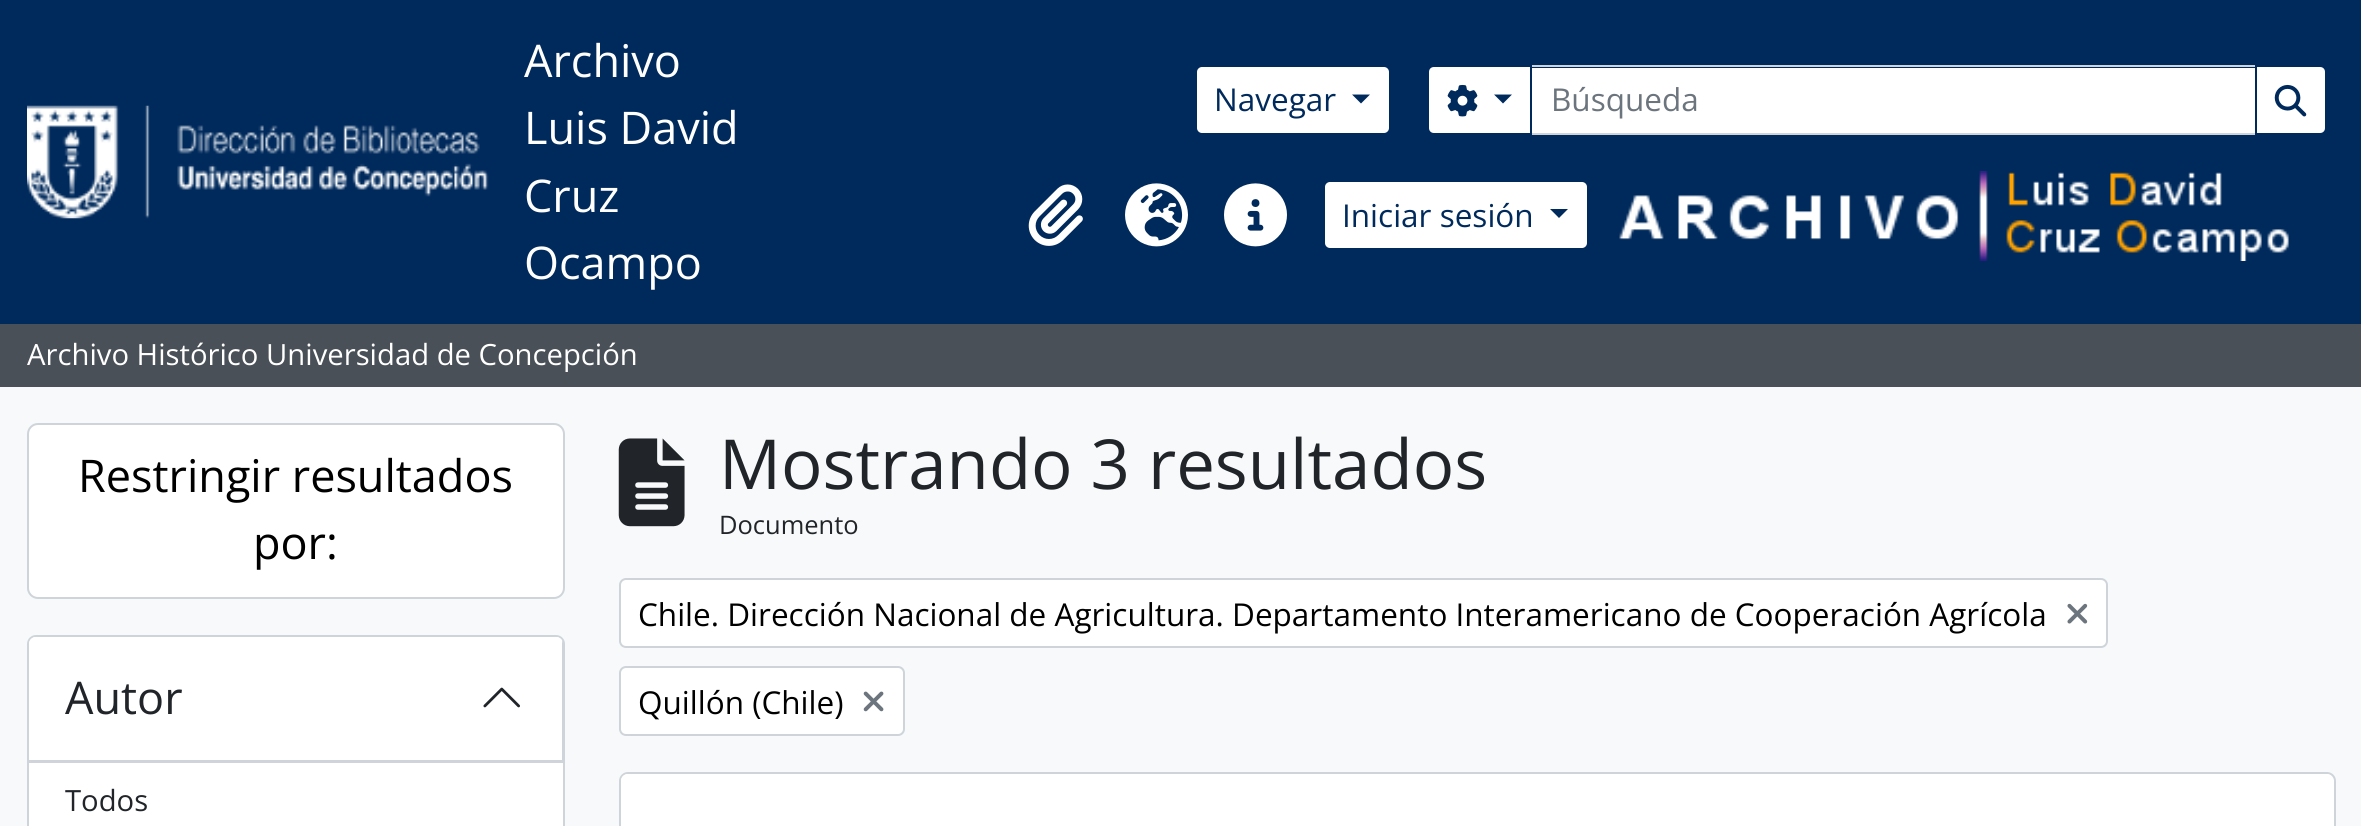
import math
import cairo

surface = cairo.ImageSurface(cairo.FORMAT_RGB24, 2361, 826)
ctx = cairo.Context(surface)
options = cairo.FontOptions()
options.set_hint_metrics(cairo.HINT_METRICS_OFF)
options.set_hint_style(cairo.HINT_STYLE_NONE)
ctx.set_font_options(options)
ctx.set_miter_limit(4)


def set_color(code):
    ctx.set_source_rgb(*(v / 255 for v in bytes.fromhex(code[-6:])))


def draw_text(x, y, s, family, size, color, bold=False, italic=False):
    ctx.select_font_face(family, cairo.FONT_SLANT_ITALIC if italic else cairo.FONT_SLANT_NORMAL, cairo.FONT_WEIGHT_BOLD if bold else cairo.FONT_WEIGHT_NORMAL)
    ctx.set_font_size(size)
    set_color(color)
    ctx.move_to(x, y)
    ctx.show_text(s)


def fill_rect(x, y, w, h, color):
    set_color(color)
    ctx.rectangle(x, y, w, h)
    ctx.fill()


def rounded_rect(x, y, w, h, r):
    ctx.new_sub_path()
    for i, (u, v) in enumerate([(x + w - r, y + h - r), (x + r, y + h - r), (x + r, y + r), (x + w - r, y + r)]):
        ctx.arc(u, v, r, i * math.pi / 2, (i + 1) * math.pi / 2)
    ctx.close_path()


def draw_image(path, x, y, w, h):
    ctx.save()
    ctx.set_source_surface(cairo.ImageSurface.create_from_png(path), x, y)
    ctx.rectangle(x, y, w, h)
    ctx.fill()
    ctx.restore()


set_color("#f8f9fa")
ctx.paint()
fill_rect(0, 0, 2361, 324, "#002a5c")
draw_image("assets/img1.png", 27, 105, 462, 114)
draw_text(524, 77, "Archivo", "Open Sans", 45, "#ffffff")
draw_text(524, 144, "Luis David", "Open Sans", 45, "#ffffff")
draw_text(524, 212, "Cruz", "Open Sans", 45, "#ffffff")
draw_text(524, 279, "Ocampo", "Open Sans", 45, "#ffffff")
rounded_rect(1196, 66, 194, 68, 6)
ctx.fill_preserve()
set_color("#002a5c")
ctx.stroke()
draw_text(1214, 111, "Navegar", "Open Sans", 31.5, "#002a5c")
ctx.new_path()
ctx.move_to(1352, 94.5)
ctx.line_to(1370, 94.5)
ctx.line_to(1361, 103.5)
ctx.close_path()
ctx.fill()
fill_rect(1532, 68, 723, 65, "#ffffff")
ctx.rectangle(1531, 66, 725, 68)
set_color("#ced4da")
ctx.stroke()
set_color("#ffffff")
ctx.new_path()
ctx.move_to(1434, 66)
ctx.line_to(1531, 66)
ctx.line_to(1531, 134)
ctx.line_to(1434, 134)
ctx.curve_to(1430.5, 134, 1428, 131.5, 1428, 128)
ctx.line_to(1428, 72)
ctx.curve_to(1428, 68.5, 1430.5, 66, 1434, 66)
ctx.close_path()
ctx.fill_preserve()
set_color("#002a5c")
ctx.stroke()
draw_image("assets/img2.png", 1447, 84, 31, 33)
ctx.new_path()
ctx.move_to(1494, 94.5)
ctx.line_to(1512, 94.5)
ctx.line_to(1503, 103.5)
ctx.close_path()
ctx.fill()
draw_text(1551, 111, "Búsqueda", "Open Sans", 31.5, "#6c757d")
set_color("#ffffff")
ctx.new_path()
ctx.move_to(2256, 66)
ctx.line_to(2320, 66)
ctx.curve_to(2323.5, 66, 2326, 68.5, 2326, 72)
ctx.line_to(2326, 128)
ctx.curve_to(2326, 131.5, 2323.5, 134, 2320, 134)
ctx.line_to(2256, 134)
ctx.close_path()
ctx.fill_preserve()
set_color("#002a5c")
ctx.stroke()
draw_image("assets/img3.png", 2274, 84, 33, 33)
draw_image("assets/img4.png", 1028, 184, 55, 62)
draw_image("assets/img5.png", 1125, 183, 63, 64)
draw_image("assets/img6.png", 1224, 183, 63, 64)
set_color("#ffffff")
rounded_rect(1324, 181, 264, 68, 6)
ctx.fill_preserve()
set_color("#002a5c")
ctx.stroke()
draw_text(1342, 227, "Iniciar sesión", "Open Sans", 31.5, "#002a5c")
ctx.new_path()
ctx.move_to(1550, 209)
ctx.line_to(1568, 209)
ctx.line_to(1559, 218)
ctx.close_path()
ctx.fill()
draw_image("assets/img7.png", 1619, 171, 670, 90)
fill_rect(0, 324, 2361, 63, "#495057")
draw_text(27, 365, "Archivo Histórico Universidad de Concepción", "Open Sans", 29.25, "#ffffff")
rounded_rect(28, 424, 536, 174, 10)
ctx.fill_preserve()
set_color("#ced4da")
ctx.stroke()
draw_text(78, 492, "Restringir resultados", "Open Sans", 45, "#000000")
draw_text(253, 559, "por:", "Open Sans", 45, "#000000")
set_color("#ffffff")
rounded_rect(28, 636, 536, 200, 8)
ctx.fill_preserve()
set_color("#ced4da")
ctx.stroke()
set_color("#ffffff")
ctx.new_path()
ctx.move_to(36, 637)
ctx.line_to(556, 637)
ctx.curve_to(560, 637, 563, 640, 563, 644)
ctx.line_to(563, 763)
ctx.line_to(29, 763)
ctx.line_to(29, 644)
ctx.curve_to(29, 640, 32, 637, 36, 637)
ctx.close_path()
ctx.fill()
set_color("#ced4da")
ctx.new_path()
ctx.move_to(29, 760)
ctx.line_to(29, 763)
ctx.line_to(563, 763)
ctx.line_to(563, 644)
ctx.curve_to(563, 643, 563, 641, 562, 640)
ctx.line_to(562, 760)
ctx.close_path()
ctx.fill()
draw_text(65, 714, "Autor", "Open Sans", 45, "#212529")
draw_image("assets/img8.png", 483, 687, 37, 21)
draw_text(65, 811, "Todos", "Open Sans", 29.25, "#212529")
draw_image("assets/img9.png", 618, 438, 67, 89)
draw_text(719, 489, "Mostrando 3 resultados", "Open Sans", 69, "#212529")
draw_text(719, 534, "Documento", "Open Sans", 25.5, "#212529")
set_color("#ffffff")
rounded_rect(620, 579, 1487, 68, 6)
ctx.fill_preserve()
set_color("#ced4da")
ctx.stroke()
draw_text(638, 626, "Chile. Dirección Nacional de Agricultura. Departamento Interamericano de Cooperación Agrícola", "Open Sans", 31.5, "#000000")
draw_image("assets/img10.png", 2067, 603, 21, 21)
set_color("#ffffff")
rounded_rect(620, 667, 284, 68, 6)
ctx.fill_preserve()
set_color("#ced4da")
ctx.stroke()
draw_text(638, 714, "Quillón (Chile)", "Open Sans", 31.5, "#000000")
draw_image("assets/img11.png", 863, 691, 21, 21)
set_color("#ffffff")
rounded_rect(620, 773, 1715, 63, 8)
ctx.fill_preserve()
set_color("#ced4da")
ctx.stroke()
set_color("#ffffff")
ctx.new_path()
ctx.move_to(628, 774)
ctx.line_to(2326, 774)
ctx.curve_to(2330, 774, 2333, 777, 2333, 781)
ctx.line_to(2333, 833)
ctx.line_to(621, 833)
ctx.line_to(621, 781)
ctx.curve_to(621, 777, 624, 774, 628, 774)
ctx.close_path()
ctx.fill()
surface.write_to_png("output.png")
